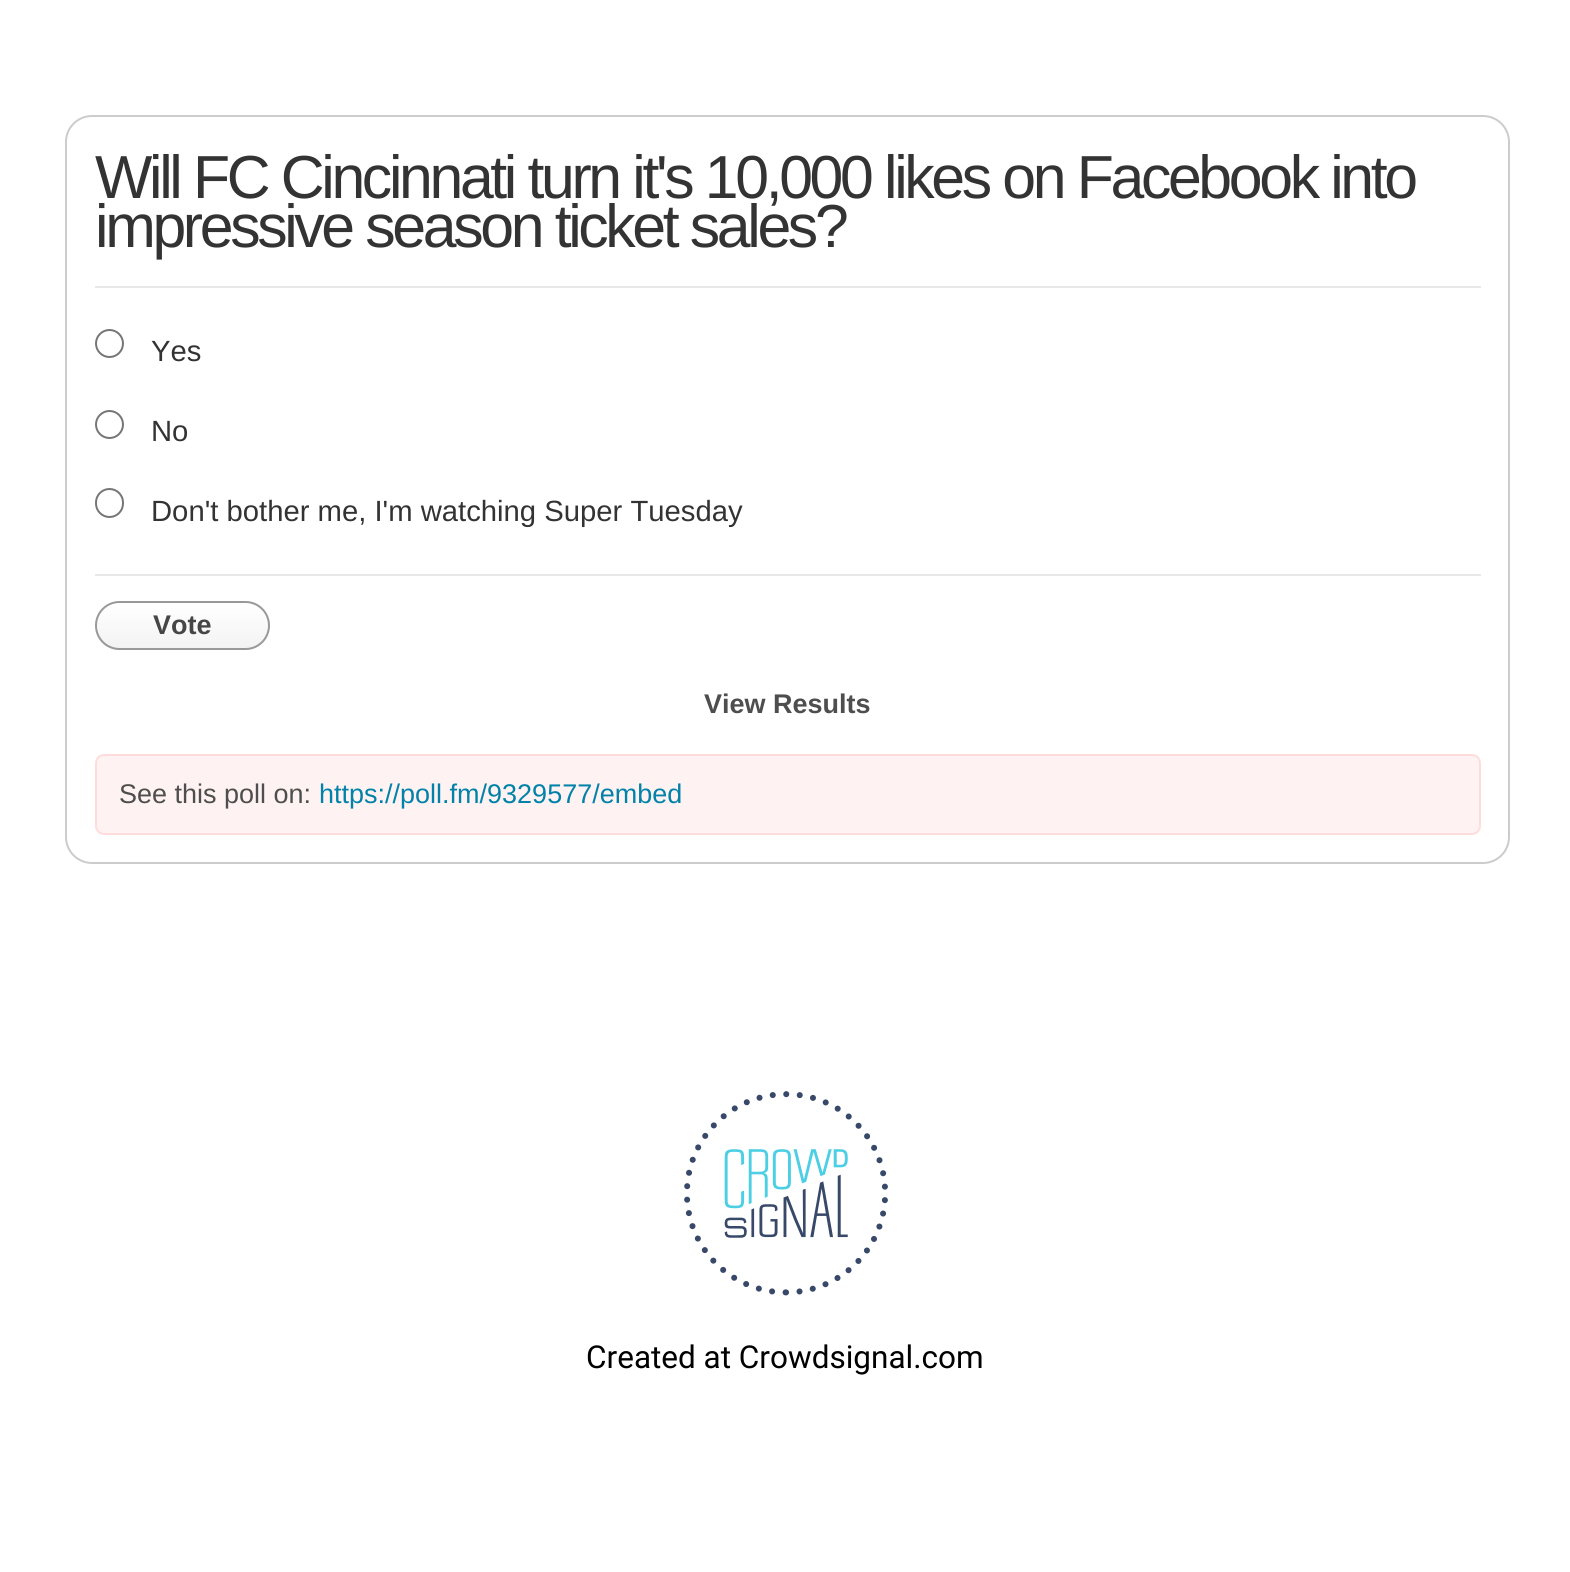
import math
import cairo

surface = cairo.ImageSurface(cairo.FORMAT_RGB24, 1570, 1572)
ctx = cairo.Context(surface)
options = cairo.FontOptions()
options.set_hint_metrics(cairo.HINT_METRICS_OFF)
options.set_hint_style(cairo.HINT_STYLE_NONE)
ctx.set_font_options(options)
ctx.set_miter_limit(4)


def set_color(code):
    ctx.set_source_rgb(*(v / 255 for v in bytes.fromhex(code[-6:])))


def draw_text(x, y, s, family, size, color, bold=False, italic=False):
    ctx.select_font_face(family, cairo.FONT_SLANT_ITALIC if italic else cairo.FONT_SLANT_NORMAL, cairo.FONT_WEIGHT_BOLD if bold else cairo.FONT_WEIGHT_NORMAL)
    ctx.set_font_size(size)
    set_color(color)
    ctx.move_to(x, y)
    ctx.show_text(s)


def draw_spaced(x, y, s, letter, word):
    ctx.move_to(x, y)
    for ch in s:
        ctx.show_text(ch)
        ctx.rel_move_to(letter + word * (ch == ' '), 0)


def fill_rect(x, y, w, h, color):
    set_color(color)
    ctx.rectangle(x, y, w, h)
    ctx.fill()


def rounded_rect(x, y, w, h, r):
    ctx.new_sub_path()
    for i, (u, v) in enumerate([(x + w - r, y + h - r), (x + r, y + h - r), (x + r, y + r), (x + w - r, y + r)]):
        ctx.arc(u, v, r, i * math.pi / 2, (i + 1) * math.pi / 2)
    ctx.close_path()


def draw_image(path, x, y, w, h):
    ctx.save()
    ctx.set_source_surface(cairo.ImageSurface.create_from_png(path), x, y)
    ctx.rectangle(x, y, w, h)
    ctx.fill()
    ctx.restore()


set_color("#ffffff")
ctx.paint()
rounded_rect(66, 116, 1443, 747, 26)
set_color("#cccccc")
ctx.stroke()
ctx.select_font_face("Liberation Sans")
ctx.set_font_size(60.75)
set_color("#333333")
draw_spaced(95, 198, "Will FC Cincinnati turn it's 10,000 likes on Facebook into", -3.35, 0)
draw_spaced(95, 247, "impressive season ticket sales?", -3.35, 0)
fill_rect(95, 286, 1386, 2, "#e8e8e8")
fill_rect(95, 574, 1386, 2, "#e8e8e8")
ctx.new_path()
ctx.arc(109.5, 343.5, 13.5, 0, 2 * math.pi)
set_color("#767676")
ctx.stroke()
draw_text(151, 361, "Yes", "Liberation Sans", 29.25, "#333333")
ctx.new_path()
ctx.arc(109.5, 424.5, 13.5, 0, 2 * math.pi)
set_color("#767676")
ctx.stroke()
draw_text(151, 441, "No", "Liberation Sans", 29.25, "#333333")
rounded_rect(96, 489, 27, 28, 13.5)
set_color("#767676")
ctx.stroke()
draw_text(151, 521, "Don't bother me, I'm watching Super Tuesday", "Liberation Sans", 29.25, "#333333")
draw_image("assets/img1.png", 95, 603, 175, 47)
rounded_rect(96, 602, 173, 47, 23.5)
set_color("#999999")
ctx.stroke()
draw_text(153, 634, "Vote", "Liberation Sans", 27, "#464646", bold=True)
draw_text(704, 713, "View Results", "Liberation Sans", 27, "#4e4e4e", bold=True)
set_color("#fff2f2")
rounded_rect(96, 755, 1384, 79, 8)
ctx.fill_preserve()
set_color("#ffdcdc")
ctx.stroke()
draw_text(119, 803, "See this poll on:", "Liberation Sans", 27, "#4e4e4e")
draw_text(319, 803, "https://poll.fm/9329577/embed", "Liberation Sans", 27, "#0182a8")
draw_image("assets/img2.png", 684, 1091, 204, 205)
draw_text(586, 1368, "Created at Crowdsignal.com", "Roboto", 31.5, "#000000")
surface.write_to_png("output.png")
